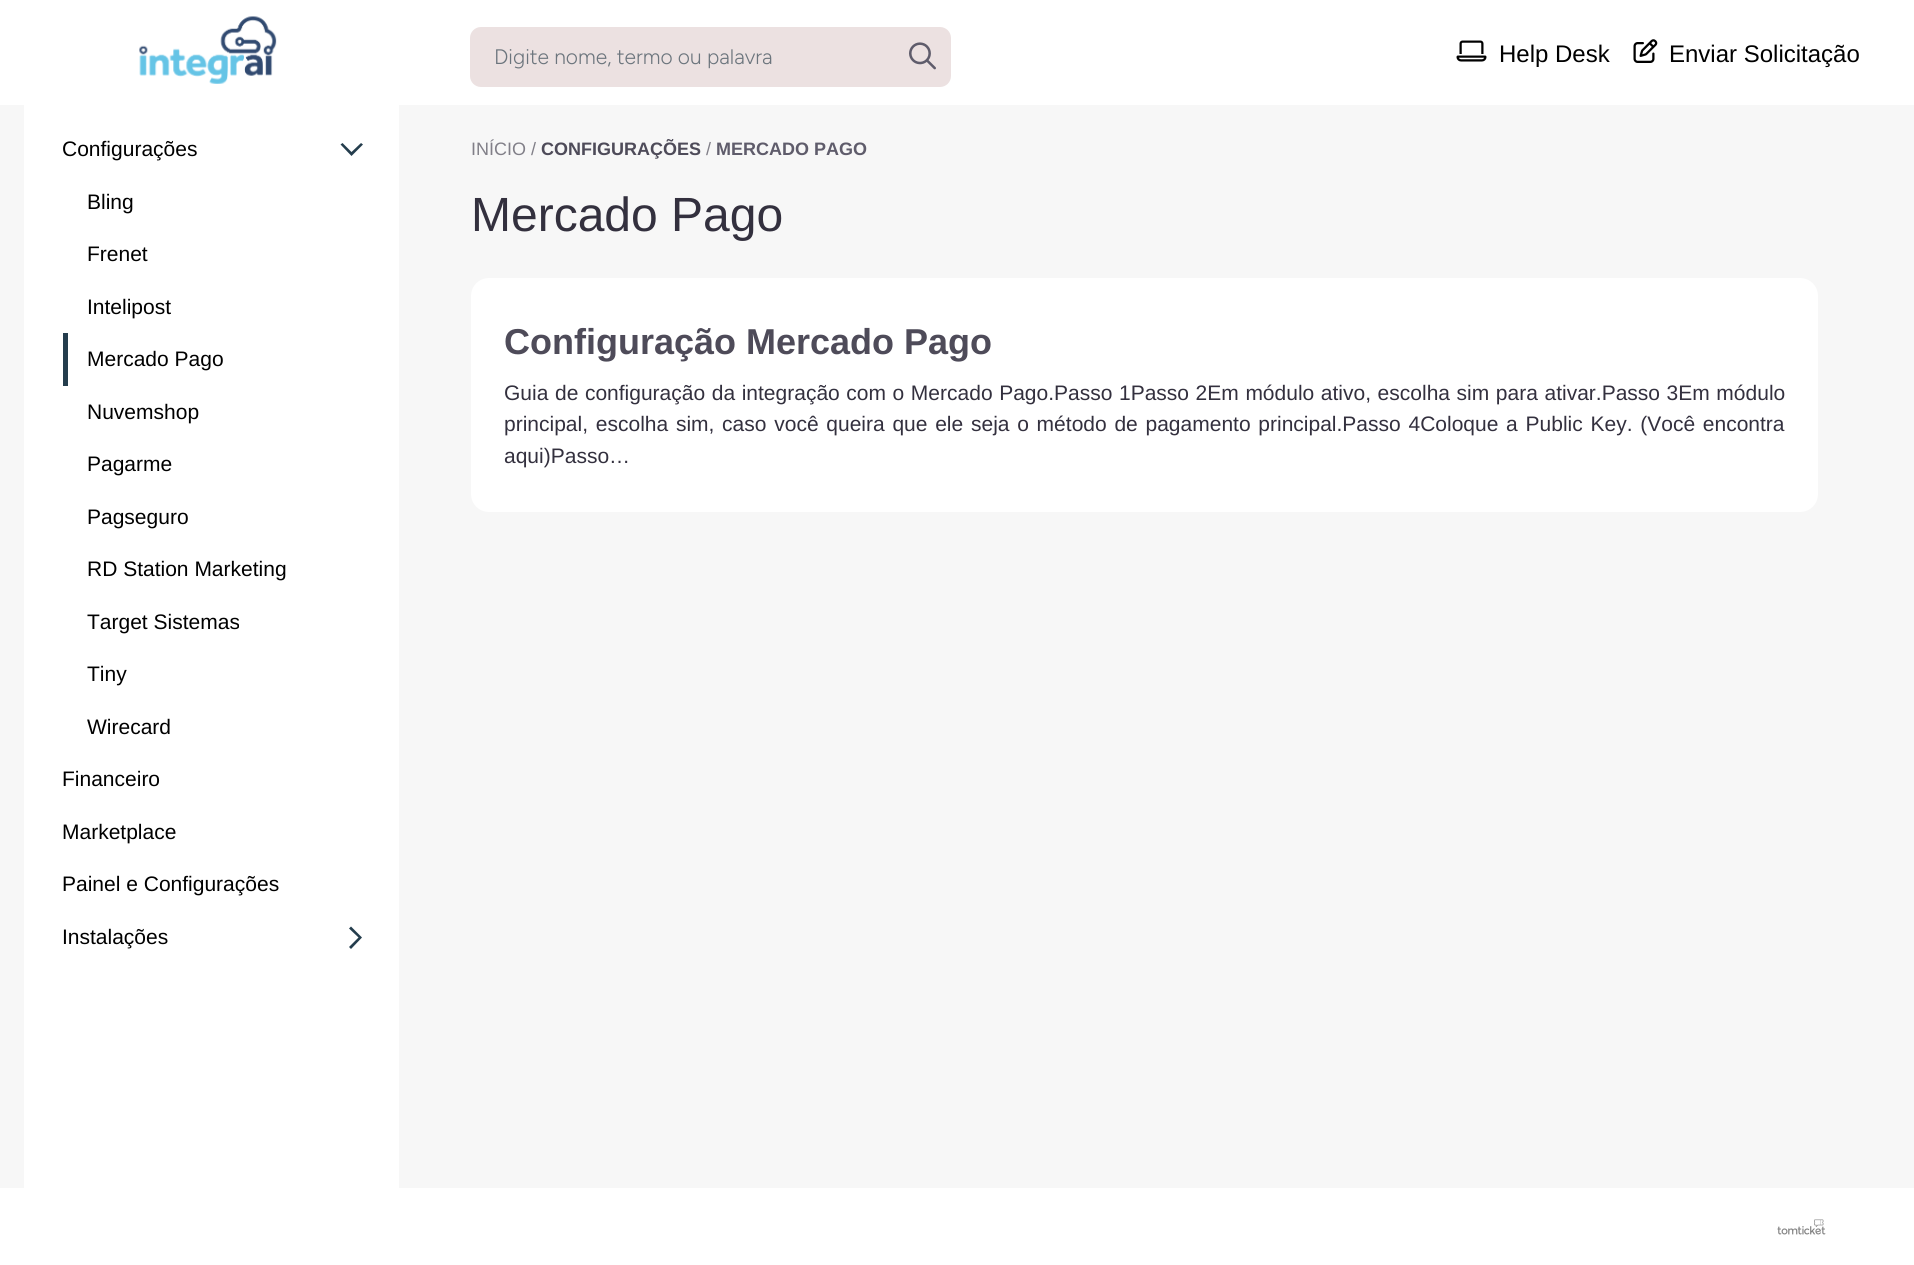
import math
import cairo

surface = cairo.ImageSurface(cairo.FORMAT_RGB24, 1914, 1265)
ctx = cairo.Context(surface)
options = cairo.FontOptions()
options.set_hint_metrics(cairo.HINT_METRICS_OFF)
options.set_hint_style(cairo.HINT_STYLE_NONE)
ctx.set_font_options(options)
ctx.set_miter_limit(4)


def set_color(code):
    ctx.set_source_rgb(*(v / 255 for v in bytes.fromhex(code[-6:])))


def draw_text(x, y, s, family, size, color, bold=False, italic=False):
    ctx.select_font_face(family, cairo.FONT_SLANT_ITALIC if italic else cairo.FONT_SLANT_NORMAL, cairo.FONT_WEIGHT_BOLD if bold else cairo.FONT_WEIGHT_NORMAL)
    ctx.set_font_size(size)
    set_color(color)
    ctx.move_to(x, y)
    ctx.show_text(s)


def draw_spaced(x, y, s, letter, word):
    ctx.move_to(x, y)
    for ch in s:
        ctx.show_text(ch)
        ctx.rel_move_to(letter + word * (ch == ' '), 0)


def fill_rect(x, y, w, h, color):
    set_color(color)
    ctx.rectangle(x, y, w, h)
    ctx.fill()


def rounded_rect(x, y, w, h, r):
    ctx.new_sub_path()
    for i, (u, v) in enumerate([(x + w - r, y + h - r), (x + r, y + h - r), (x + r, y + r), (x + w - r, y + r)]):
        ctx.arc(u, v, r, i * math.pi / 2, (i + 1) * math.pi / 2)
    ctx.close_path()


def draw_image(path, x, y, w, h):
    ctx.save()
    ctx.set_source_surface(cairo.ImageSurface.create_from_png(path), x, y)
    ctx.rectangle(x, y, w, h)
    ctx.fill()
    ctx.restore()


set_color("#f7f7f7")
ctx.paint()
fill_rect(0, 0, 1914, 105, "#ffffff")
draw_image("assets/img1.png", 139, 16, 138, 68)
set_color("#ece1e1")
rounded_rect(470, 27, 481, 60, 11)
ctx.fill()
draw_text(494, 64, "Digite nome, termo ou palavra", "Figtree Light", 21, "#6c757d")
draw_image("assets/img2.png", 909, 42, 27, 28)
draw_image("assets/img3.png", 1456, 40, 31, 22)
draw_text(1499, 62, "Help Desk", "Liberation Sans", 24, "#000000")
draw_image("assets/img4.png", 1633, 39, 25, 24)
draw_text(1669, 62, "Enviar Solicitação", "Liberation Sans", 24, "#000000")
fill_rect(24, 105, 375, 1083, "#ffffff")
draw_text(62, 156, "Configurações", "Liberation Sans", 21, "#000000")
set_color("#243d4d")
ctx.new_path()
ctx.move_to(342.5, 143)
ctx.line_to(340.5, 144.5)
ctx.line_to(351.5, 156)
ctx.line_to(363, 144.5)
ctx.line_to(361, 143)
ctx.line_to(351.5, 152)
ctx.close_path()
ctx.fill()
draw_text(87, 209, "Bling", "Liberation Sans", 21, "#000000")
draw_text(87, 261, "Frenet", "Liberation Sans", 21, "#000000")
draw_text(87, 314, "Intelipost", "Liberation Sans", 21, "#000000")
fill_rect(63, 333, 5, 53, "#243d4d")
draw_text(87, 366, "Mercado Pago", "Liberation Sans", 21, "#000000")
draw_text(87, 419, "Nuvemshop", "Liberation Sans", 21, "#000000")
draw_text(87, 471, "Pagarme", "Liberation Sans", 21, "#000000")
draw_text(87, 524, "Pagseguro", "Liberation Sans", 21, "#000000")
draw_text(87, 576, "RD Station Marketing", "Liberation Sans", 21, "#000000")
draw_text(87, 629, "Target Sistemas", "Liberation Sans", 21, "#000000")
draw_text(87, 681, "Tiny", "Liberation Sans", 21, "#000000")
draw_text(87, 734, "Wirecard", "Liberation Sans", 21, "#000000")
draw_text(62, 786, "Financeiro", "Liberation Sans", 21, "#000000")
draw_text(62, 839, "Marketplace", "Liberation Sans", 21, "#000000")
draw_text(62, 891, "Painel e Configurações", "Liberation Sans", 21, "#000000")
draw_text(62, 944, "Instalações", "Liberation Sans", 21, "#000000")
set_color("#243d4d")
ctx.new_path()
ctx.move_to(349, 947)
ctx.line_to(351, 949)
ctx.line_to(362, 937.5)
ctx.line_to(351, 926.5)
ctx.line_to(349, 928.5)
ctx.line_to(358.5, 937.5)
ctx.close_path()
ctx.fill()
draw_text(471, 155, "INÍCIO /", "Liberation Sans", 18, "#817f88")
draw_text(541, 155, "CONFIGURAÇÕES", "Liberation Sans", 18, "#4e4b59", bold=True)
draw_text(706, 155, "/", "Liberation Sans", 18, "#817f88")
draw_text(716, 155, "MERCADO PAGO", "Liberation Sans", 18, "#5f5c6b", bold=True)
draw_text(471, 231, "Mercado Pago", "Liberation Sans", 48, "#33303e")
set_color("#ffffff")
rounded_rect(471, 278, 1347, 234, 18)
ctx.fill()
draw_text(504, 354, "Configuração Mercado Pago", "Liberation Sans", 36, "#4e4b59", bold=True)
ctx.select_font_face("Liberation Sans")
ctx.set_font_size(21)
set_color("#33303e")
draw_spaced(504, 400, "Guia de configuração da integração com o Mercado Pago.Passo 1Passo 2Em módulo ativo, escolha sim para ativar.Passo 3Em módulo", 0, 0.75)
draw_spaced(504, 431, "principal, escolha sim, caso você queira que ele seja o método de pagamento principal.Passo 4Coloque a Public Key. (Você encontra", 0, 1.9)
draw_text(504, 463, "aqui)Passo…", "Liberation Sans", 21, "#33303e")
fill_rect(0, 1188, 1914, 77, "#ffffff")
draw_image("assets/img5.png", 1777, 1219, 49, 16)
surface.write_to_png("output.png")
